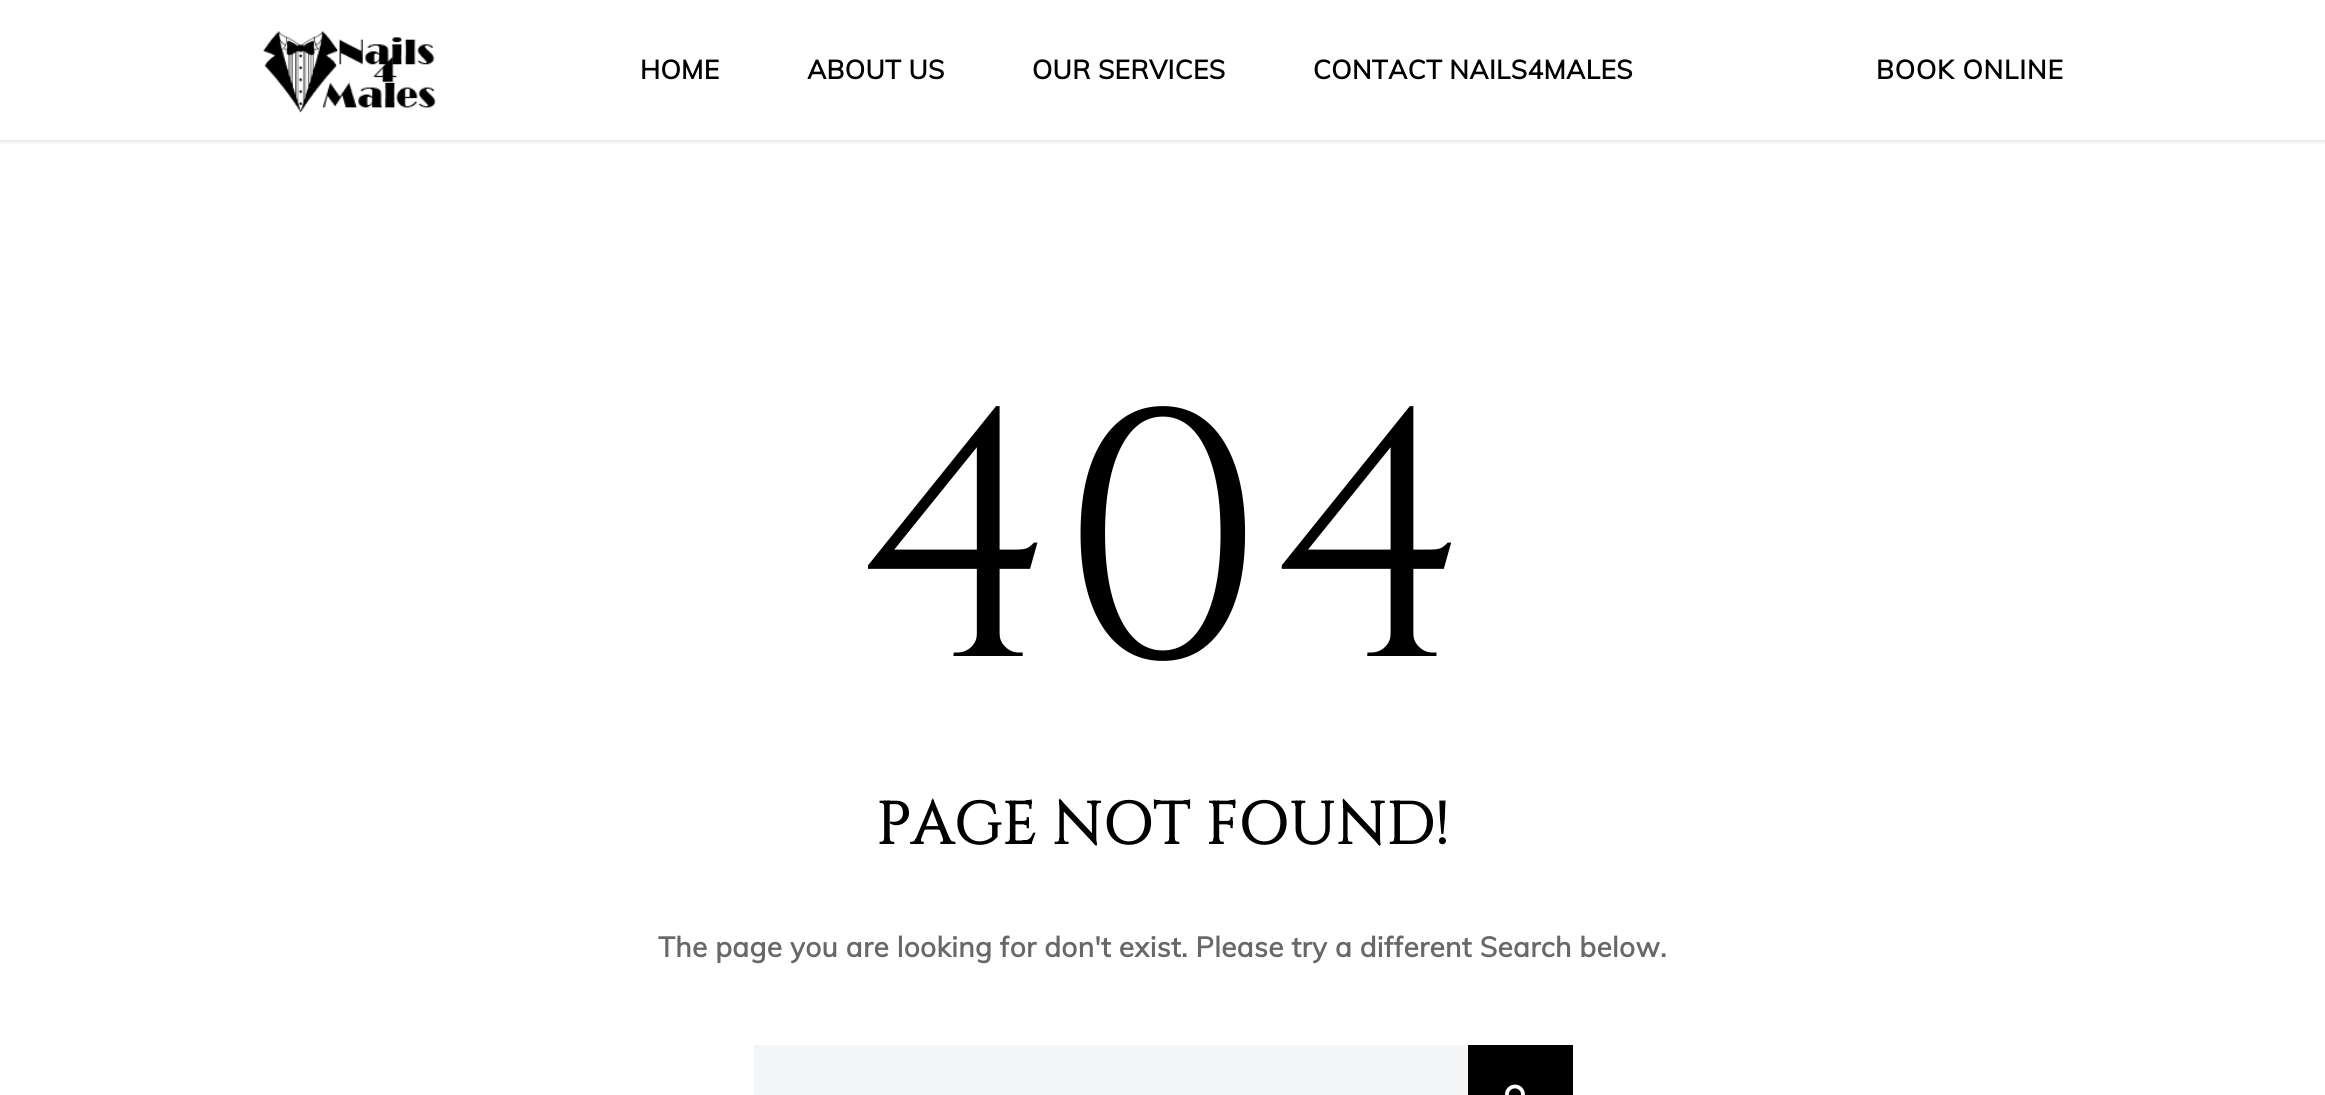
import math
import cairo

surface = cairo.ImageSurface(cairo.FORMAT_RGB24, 2325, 1095)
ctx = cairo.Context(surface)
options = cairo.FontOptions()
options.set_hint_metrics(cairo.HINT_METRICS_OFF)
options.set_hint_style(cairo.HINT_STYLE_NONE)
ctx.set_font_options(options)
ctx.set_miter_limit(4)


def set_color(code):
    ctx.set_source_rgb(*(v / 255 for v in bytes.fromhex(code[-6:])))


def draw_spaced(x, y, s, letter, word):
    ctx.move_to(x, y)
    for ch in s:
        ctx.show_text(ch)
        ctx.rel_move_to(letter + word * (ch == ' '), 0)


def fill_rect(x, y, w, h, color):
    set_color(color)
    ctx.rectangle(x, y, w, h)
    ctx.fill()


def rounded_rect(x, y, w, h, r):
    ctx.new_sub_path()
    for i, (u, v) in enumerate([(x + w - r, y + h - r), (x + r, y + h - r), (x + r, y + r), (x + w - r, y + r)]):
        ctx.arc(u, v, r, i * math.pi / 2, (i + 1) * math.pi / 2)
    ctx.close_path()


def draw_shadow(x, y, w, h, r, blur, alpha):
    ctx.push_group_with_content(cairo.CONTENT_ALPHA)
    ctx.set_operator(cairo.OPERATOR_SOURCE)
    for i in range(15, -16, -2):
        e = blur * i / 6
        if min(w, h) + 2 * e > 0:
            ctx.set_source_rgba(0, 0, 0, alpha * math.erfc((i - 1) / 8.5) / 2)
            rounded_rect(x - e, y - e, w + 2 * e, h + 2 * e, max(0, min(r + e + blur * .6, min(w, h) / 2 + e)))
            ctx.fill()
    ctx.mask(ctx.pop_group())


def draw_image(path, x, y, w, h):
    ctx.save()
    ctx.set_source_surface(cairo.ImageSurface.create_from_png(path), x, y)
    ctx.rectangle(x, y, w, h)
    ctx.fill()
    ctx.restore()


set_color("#ffffff")
ctx.paint()
ctx.save()
ctx.rectangle(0, 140, 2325, 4)
ctx.clip()
set_color("#000000")
draw_shadow(0, 2, 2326, 140, 0, 2, 0.1)
ctx.restore()
draw_image("assets/img1.png", 263, 31, 173, 82)
ctx.select_font_face("Muli", cairo.FONT_SLANT_NORMAL, cairo.FONT_WEIGHT_BOLD)
ctx.set_font_size(26.25)
set_color("#000000")
draw_spaced(640, 79, "HOME", 0.35, 0)
draw_spaced(807, 79, "ABOUT US", 0.35, 0)
draw_spaced(1032, 79, "OUR SERVICES", 0.35, 0)
draw_spaced(1313, 79, "CONTACT NAILS4MALES", 0.35, 0)
draw_spaced(1876, 79, "BOOK ONLINE", 0.9, 0)
ctx.select_font_face("Cinzel")
ctx.set_font_size(350)
draw_spaced(854, 656, "404", 0.5, 0)
ctx.select_font_face("Cinzel", cairo.FONT_SLANT_NORMAL, cairo.FONT_WEIGHT_BOLD)
ctx.set_font_size(59.5)
draw_spaced(876, 844, "PAGE NOT FOUND!", 0.5, 0)
ctx.select_font_face("Muli", cairo.FONT_SLANT_NORMAL, cairo.FONT_WEIGHT_BOLD)
ctx.set_font_size(28)
set_color("#686868")
draw_spaced(658, 957, "The page you are looking for don't exist. Please try a different Search below.", 0.35, 0)
fill_rect(754, 1045, 714, 50, "#f4f5f7")
fill_rect(1468, 1045, 105, 50, "#000000")
draw_image("assets/img2.png", 1505, 1084, 20, 11)
surface.write_to_png("output.png")
